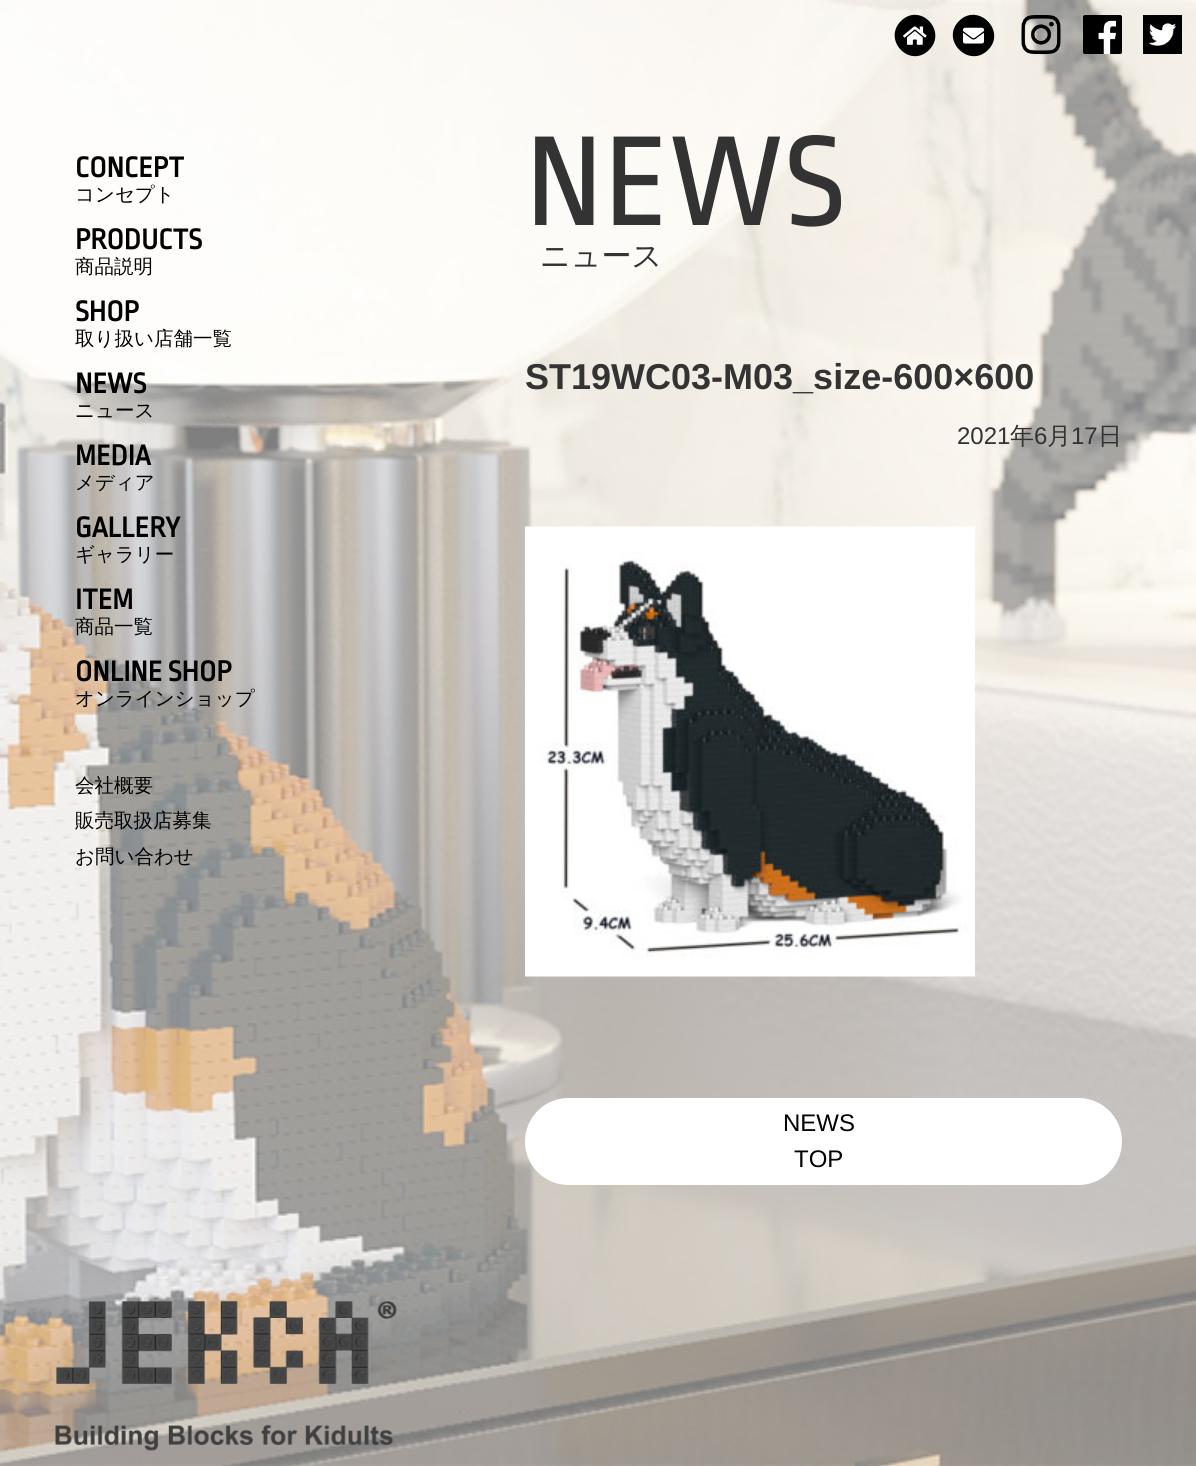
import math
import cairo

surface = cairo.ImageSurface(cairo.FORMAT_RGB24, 1196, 1466)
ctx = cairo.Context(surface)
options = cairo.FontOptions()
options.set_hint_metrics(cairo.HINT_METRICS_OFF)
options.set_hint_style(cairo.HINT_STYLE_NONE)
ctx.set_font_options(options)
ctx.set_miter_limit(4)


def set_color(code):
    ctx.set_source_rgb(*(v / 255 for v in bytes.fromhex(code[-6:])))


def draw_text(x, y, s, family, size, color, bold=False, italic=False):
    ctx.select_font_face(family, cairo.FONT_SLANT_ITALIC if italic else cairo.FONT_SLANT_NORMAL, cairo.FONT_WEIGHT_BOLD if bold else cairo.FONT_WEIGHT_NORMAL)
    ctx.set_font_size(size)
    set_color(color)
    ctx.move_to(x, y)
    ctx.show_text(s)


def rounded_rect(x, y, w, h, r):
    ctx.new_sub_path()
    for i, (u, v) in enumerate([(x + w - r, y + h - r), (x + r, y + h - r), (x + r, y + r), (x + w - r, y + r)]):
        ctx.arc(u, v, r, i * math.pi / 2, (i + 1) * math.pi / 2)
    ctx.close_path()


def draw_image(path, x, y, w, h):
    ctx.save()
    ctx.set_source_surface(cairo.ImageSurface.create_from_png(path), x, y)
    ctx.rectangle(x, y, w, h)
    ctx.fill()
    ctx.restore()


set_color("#ffffff")
ctx.paint()
draw_image("assets/img1.png", 0, 0, 1196, 1466)
set_color("#000000")
ctx.new_path()
ctx.move_to(901, 21)
ctx.curve_to(920, 2, 948, 31, 929, 50)
ctx.curve_to(910, 69, 882, 40, 901, 21)
ctx.close_path()
ctx.fill()
draw_image("assets/img2.png", 903, 26, 24, 19)
ctx.new_path()
ctx.move_to(959, 21)
ctx.curve_to(978, 2, 1007, 31, 988, 50)
ctx.curve_to(969, 69, 940, 40, 959, 21)
ctx.close_path()
ctx.fill()
draw_image("assets/img3.png", 963, 27, 21, 17)
draw_image("assets/img4.png", 1021, 15, 40, 39)
draw_image("assets/img5.png", 1083, 15, 39, 39)
draw_image("assets/img6.png", 1143, 15, 39, 39)
draw_text(75, 177, "CONCEPT", "Ropa Sans", 30, "#000000", bold=True)
draw_text(75, 201, "コンセプト", "WenQuanYi Zen Hei Medium", 19.5, "#000000")
draw_text(75, 249, "PRODUCTS", "Ropa Sans", 30, "#000000", bold=True)
draw_text(75, 273, "商品説明", "WenQuanYi Zen Hei Medium", 19.5, "#000000")
draw_text(75, 321, "SHOP", "Ropa Sans", 30, "#000000", bold=True)
draw_text(75, 345, "取り扱い店舗一覧", "WenQuanYi Zen Hei Medium", 19.5, "#000000")
draw_text(75, 393, "NEWS", "Ropa Sans", 30, "#000000", bold=True)
draw_text(75, 417, "ニュース", "WenQuanYi Zen Hei Medium", 19.5, "#000000")
draw_text(75, 465, "MEDIA", "Ropa Sans", 30, "#000000", bold=True)
draw_text(75, 489, "メディア", "WenQuanYi Zen Hei Medium", 19.5, "#000000")
draw_text(75, 537, "GALLERY", "Ropa Sans", 30, "#000000", bold=True)
draw_text(75, 561, "ギャラリー", "WenQuanYi Zen Hei Medium", 19.5, "#000000")
draw_text(75, 609, "ITEM", "Ropa Sans", 30, "#000000", bold=True)
draw_text(75, 633, "商品一覧", "WenQuanYi Zen Hei Medium", 19.5, "#000000")
draw_text(75, 681, "ONLINE SHOP", "Ropa Sans", 30, "#000000", bold=True)
draw_text(75, 705, "オンラインショップ", "WenQuanYi Zen Hei Medium", 19.5, "#000000")
draw_text(75, 792, "会社概要", "WenQuanYi Zen Hei Medium", 19.5, "#000000")
draw_text(75, 827, "販売取扱店募集", "WenQuanYi Zen Hei Medium", 19.5, "#000000")
draw_text(75, 863, "お問い合わせ", "WenQuanYi Zen Hei Medium", 19.5, "#000000")
draw_image("assets/img7.png", 55, 1301, 342, 150)
draw_text(525, 225, "NEWS", "Ropa Sans", 135, "#333333")
draw_text(540, 266, "ニュース", "WenQuanYi Zen Hei Medium", 30, "#333333")
draw_text(525, 389, "ST19WC03-M03_size-600×600", "Liberation Sans", 36, "#333333", bold=True)
draw_text(957, 444, "2021", "Liberation Sans", 24, "#333333")
draw_text(1010, 444, "年", "WenQuanYi Zen Hei Medium", 24, "#333333")
draw_text(1034, 444, "6", "Liberation Sans", 24, "#333333")
draw_text(1047, 444, "月", "WenQuanYi Zen Hei Medium", 24, "#333333")
draw_text(1071, 444, "17", "Liberation Sans", 24, "#333333")
draw_text(1098, 444, "日", "WenQuanYi Zen Hei Medium", 24, "#333333")
draw_image("assets/img8.png", 525, 526, 450, 451)
set_color("#ffffff")
rounded_rect(525, 1098, 597, 87, 43.5)
ctx.fill()
draw_text(783, 1131, "NEWS", "Liberation Sans", 24, "#000000")
draw_text(794, 1167, "TOP", "Liberation Sans", 24, "#000000")
surface.write_to_png("output.png")
